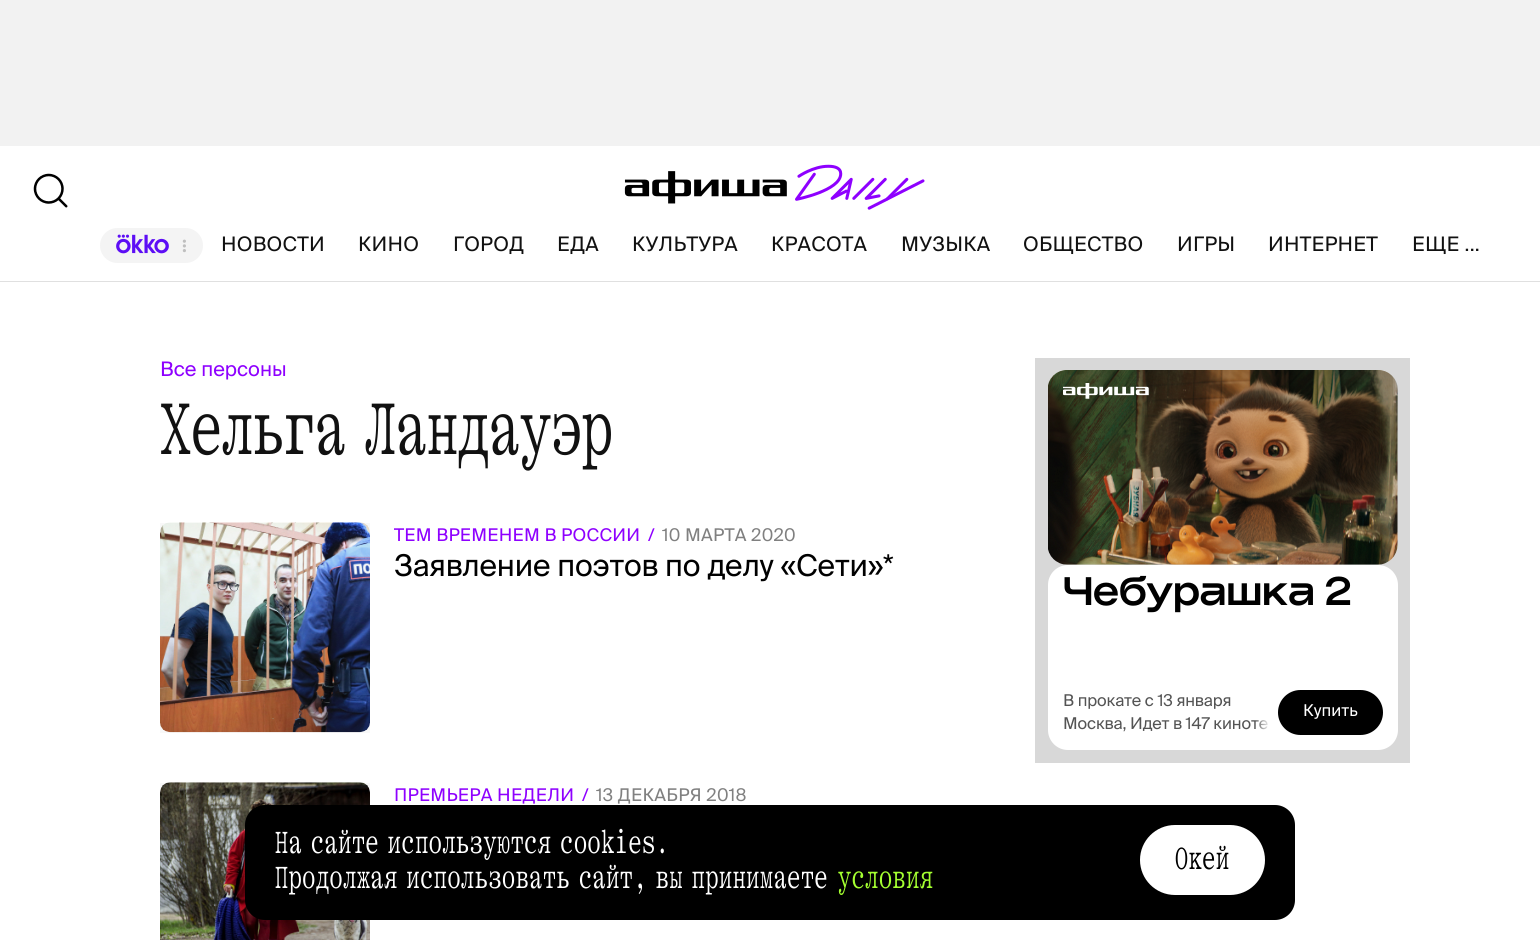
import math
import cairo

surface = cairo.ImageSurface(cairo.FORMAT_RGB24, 1540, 940)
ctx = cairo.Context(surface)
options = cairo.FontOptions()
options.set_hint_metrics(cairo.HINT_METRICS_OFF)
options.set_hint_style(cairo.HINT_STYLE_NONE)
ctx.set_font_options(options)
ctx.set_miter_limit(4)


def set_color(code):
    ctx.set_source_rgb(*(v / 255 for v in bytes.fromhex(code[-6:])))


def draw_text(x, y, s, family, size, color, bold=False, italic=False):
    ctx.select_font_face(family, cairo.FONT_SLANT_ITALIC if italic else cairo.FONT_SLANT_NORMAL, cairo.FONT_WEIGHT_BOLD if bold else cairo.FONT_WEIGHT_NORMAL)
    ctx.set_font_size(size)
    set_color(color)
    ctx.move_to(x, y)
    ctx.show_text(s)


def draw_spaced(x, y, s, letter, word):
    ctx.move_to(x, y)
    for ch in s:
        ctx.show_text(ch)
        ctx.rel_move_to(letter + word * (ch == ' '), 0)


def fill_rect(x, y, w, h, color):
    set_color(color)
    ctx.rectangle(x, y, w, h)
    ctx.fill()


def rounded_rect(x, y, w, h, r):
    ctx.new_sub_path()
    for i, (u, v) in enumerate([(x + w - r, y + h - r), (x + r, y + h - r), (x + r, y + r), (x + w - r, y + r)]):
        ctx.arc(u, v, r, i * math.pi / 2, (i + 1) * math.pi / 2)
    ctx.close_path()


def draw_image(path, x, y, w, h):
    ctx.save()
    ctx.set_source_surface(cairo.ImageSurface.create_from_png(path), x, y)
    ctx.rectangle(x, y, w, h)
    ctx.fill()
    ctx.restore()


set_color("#ffffff")
ctx.paint()
fill_rect(0, 0, 1540, 146, "#f2f2f2")
draw_image("assets/img1.png", 624, 164, 301, 46)
fill_rect(0, 281, 1540, 1, "#e0e0e0")
draw_image("assets/img2.png", 33, 173, 35, 35)
set_color("#f4f4f4")
rounded_rect(100, 228, 103, 35, 17.5)
ctx.fill()
draw_image("assets/img3.png", 116, 234, 53, 20)
set_color("#bfbfbf")
ctx.arc(184.4, 241.2, 1.6, 0, 2 * math.pi)
ctx.fill()
ctx.arc(184.4, 245.9, 1.6, 0, 2 * math.pi)
ctx.fill()
ctx.arc(184.4, 250.6, 1.6, 0, 2 * math.pi)
ctx.fill()
ctx.select_font_face("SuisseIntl")
ctx.set_font_size(20)
set_color("#111111")
draw_spaced(221, 251, "НОВОСТИ", 0.25, 0)
draw_spaced(358, 251, "КИНО", 0.25, 0)
draw_spaced(453, 251, "ГОРОД", 0.25, 0)
draw_spaced(557, 251, "ЕДА", 0.25, 0)
draw_spaced(632, 251, "КУЛЬТУРА", 0.25, 0)
draw_spaced(771, 251, "КРАСОТА", 0.25, 0)
draw_spaced(901, 251, "МУЗЫКА", 0.25, 0)
draw_spaced(1023, 251, "ОБЩЕСТВО", 0.25, 0)
draw_spaced(1177, 251, "ИГРЫ", 0.25, 0)
draw_spaced(1268, 251, "ИНТЕРНЕТ", 0.25, 0)
draw_spaced(1412, 251, "ЕЩЕ ...", 0.25, 0)
draw_text(160, 376, "Все персоны", "SuisseIntl", 20, "#8e00ff")
ctx.select_font_face("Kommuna")
ctx.set_font_size(77.5)
set_color("#111111")
draw_spaced(160, 454, "Хельга Ландауэр", 0, -12)
draw_image("assets/img4.png", 160, 522, 210, 211)
ctx.set_source_rgba(0, 0, 0, 0.03)
ctx.rectangle(160, 523, 210, 210)
ctx.fill()
ctx.select_font_face("SuisseIntl")
ctx.set_font_size(17.5)
set_color("#8e00ff")
draw_spaced(394, 541, "ТЕМ ВРЕМЕНЕМ В РОССИИ", 0.25, 0)
draw_spaced(648, 541, "/", 0.25, 0)
set_color("#808080")
draw_spaced(662, 541, "10 МАРТА 2020", 0.25, 0)
ctx.set_font_size(30)
set_color("#000000")
draw_spaced(394, 576, "Заявление поэтов по делу «Сети»*", -0.15, 0)
draw_image("assets/img5.png", 160, 782, 210, 158)
ctx.set_source_rgba(0, 0, 0, 0.03)
ctx.rectangle(160, 783, 210, 157)
ctx.fill()
ctx.set_font_size(17.5)
set_color("#8e00ff")
draw_spaced(394, 801, "ПРЕМЬЕРА НЕДЕЛИ", 0.25, 0)
draw_spaced(582, 801, "/", 0.25, 0)
set_color("#808080")
draw_spaced(596, 801, "13 ДЕКАБРЯ 2018", 0.25, 0)
fill_rect(1035, 358, 375, 405, "#d8d8d8")
draw_image("assets/img6.png", 1048, 370, 350, 195)
gradient = cairo.LinearGradient(1223, 370, 1223, 445)
gradient.add_color_stop_rgba(0, 0, 0, 0, 0.25)
gradient.add_color_stop_rgba(1, 0, 0, 0, 0)
ctx.set_source(gradient)
ctx.new_path()
ctx.move_to(1068, 370)
ctx.line_to(1378, 370)
ctx.curve_to(1389, 370, 1398, 379, 1398, 390)
ctx.line_to(1398, 445)
ctx.line_to(1048, 445)
ctx.line_to(1048, 390)
ctx.curve_to(1048, 379, 1057, 370, 1068, 370)
ctx.close_path()
ctx.fill()
draw_image("assets/img7.png", 1063, 383, 86, 16)
set_color("#ffffff")
rounded_rect(1048, 565, 350, 185, 20)
ctx.fill()
ctx.select_font_face("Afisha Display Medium")
ctx.set_font_size(38.75)
set_color("#000000")
draw_spaced(1063, 605, "Чебурашка 2", -0.75, 0)
ctx.select_font_face("SuisseIntl")
ctx.set_font_size(16.25)
set_color("#545454")
draw_spaced(1063, 706, "В прокате с 13 января", -0.15, 0)
draw_spaced(1063, 729, "Москва, Идет в 147 киноте", -0.15, 0)
gradient = cairo.LinearGradient(1270, 724, 1255, 724)
gradient.add_color_stop_rgba(0, 1, 1, 1, 1)
gradient.add_color_stop_rgba(1, 1, 1, 1, 0)
ctx.set_source(gradient)
ctx.rectangle(1255, 720, 13, 10)
ctx.fill()
set_color("#000000")
rounded_rect(1278, 690, 105, 45, 22.5)
ctx.fill()
draw_text(1303, 716, "Купить", "SuisseIntl", 16.25, "#ffffff")
set_color("#000000")
rounded_rect(245, 805, 1050, 115, 20)
ctx.fill()
ctx.select_font_face("Kommuna")
ctx.set_font_size(32.5)
set_color("#ffffff")
draw_spaced(275, 853, "На сайте используются cookies.", 0.65, -5)
draw_spaced(275, 888, "Продолжая использовать сайт, вы принимаете", 0.65, -5)
set_color("#a4ff30")
draw_spaced(838, 888, "условия", 0.65, 0)
set_color("#ffffff")
rounded_rect(1140, 825, 125, 70, 35)
ctx.fill()
set_color("#000000")
draw_spaced(1175, 869, "Окей", 0.65, 0)
surface.write_to_png("output.png")
